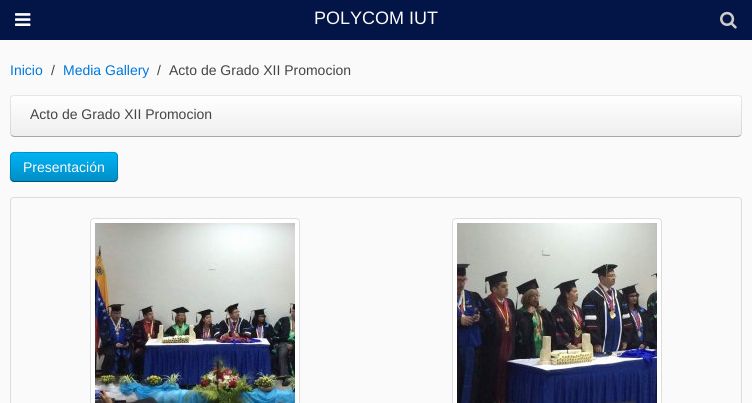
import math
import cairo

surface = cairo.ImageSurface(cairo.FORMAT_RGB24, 752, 403)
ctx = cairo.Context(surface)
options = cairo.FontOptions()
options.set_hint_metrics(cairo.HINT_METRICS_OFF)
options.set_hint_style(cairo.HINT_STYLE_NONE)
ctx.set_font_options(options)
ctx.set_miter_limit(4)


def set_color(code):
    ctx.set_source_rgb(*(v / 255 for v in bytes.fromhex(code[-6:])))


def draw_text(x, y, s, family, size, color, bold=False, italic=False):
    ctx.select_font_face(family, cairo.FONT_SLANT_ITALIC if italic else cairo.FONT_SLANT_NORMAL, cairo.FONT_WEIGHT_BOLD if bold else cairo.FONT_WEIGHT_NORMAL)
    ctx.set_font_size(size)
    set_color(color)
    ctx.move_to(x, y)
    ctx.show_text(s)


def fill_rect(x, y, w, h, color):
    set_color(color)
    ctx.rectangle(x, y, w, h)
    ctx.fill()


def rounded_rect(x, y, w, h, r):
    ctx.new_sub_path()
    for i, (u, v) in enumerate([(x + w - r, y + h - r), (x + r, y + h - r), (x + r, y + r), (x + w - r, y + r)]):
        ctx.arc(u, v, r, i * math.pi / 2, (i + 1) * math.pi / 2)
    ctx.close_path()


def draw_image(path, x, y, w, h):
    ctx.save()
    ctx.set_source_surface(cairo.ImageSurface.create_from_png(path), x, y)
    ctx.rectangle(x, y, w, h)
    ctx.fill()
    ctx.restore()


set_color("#031546")
ctx.paint()
draw_image("assets/img1.png", 15, 13, 16, 13)
draw_text(314, 24, "POLYCOM IUT", "Liberation Sans", 18, "#fafafa")
draw_image("assets/img2.png", 720, 11, 17, 18)
fill_rect(0, 40, 752, 363, "#fafafa")
draw_text(10, 75, "Inicio", "Liberation Sans", 14, "#0077dd")
draw_text(51, 75, "/", "Liberation Sans", 14, "#444444")
draw_text(63, 75, "Media Gallery", "Liberation Sans", 14, "#0077dd")
draw_text(157, 75, "/", "Liberation Sans", 14, "#444444")
draw_text(169, 75, "Acto de Grado XII Promocion", "Liberation Sans", 14, "#444444")
gradient = cairo.LinearGradient(376, 95, 376, 137)
gradient.add_color_stop_rgba(0, 1, 1, 1, 1)
gradient.add_color_stop_rgba(1, 0.933, 0.933, 0.933, 1)
ctx.set_source(gradient)
rounded_rect(10, 95, 732, 42, 4)
ctx.fill()
ctx.new_path()
ctx.move_to(740.5, 135.5)
ctx.line_to(738, 136.5)
ctx.line_to(14, 136.5)
ctx.line_to(11.5, 135.5)
set_color("#a7a7a7")
ctx.set_line_width(1)
ctx.stroke()
ctx.new_path()
ctx.move_to(11.5, 135.5)
ctx.line_to(10.5, 133.5)
ctx.line_to(10.5, 98)
ctx.curve_to(11, 96.5, 12.5, 95.5, 14, 95.5)
ctx.line_to(738, 95.5)
ctx.curve_to(739.5, 95.5, 741, 96.5, 741.5, 98)
ctx.line_to(741.5, 133.5)
ctx.line_to(740.5, 135.5)
ctx.set_source_rgba(0, 0, 0, 0.1)
ctx.stroke()
draw_text(30, 119, "Acto de Grado XII Promocion", "Liberation Sans", 14, "#444444")
gradient = cairo.LinearGradient(64, 152, 64, 182)
gradient.add_color_stop_rgba(0, 0, 0.706, 0.961, 1)
gradient.add_color_stop_rgba(1, 0, 0.553, 0.773, 1)
ctx.set_source(gradient)
rounded_rect(10, 152, 108, 30, 4)
ctx.fill()
ctx.new_path()
ctx.move_to(116.5, 180.5)
ctx.line_to(114, 181.5)
ctx.line_to(13.5, 181.5)
ctx.line_to(11.5, 180.5)
ctx.set_source_rgba(0, 0, 0, 0.4)
ctx.stroke()
ctx.new_path()
ctx.move_to(11.5, 180.5)
ctx.curve_to(9, 178, 10.5, 173.5, 10.5, 170.5)
ctx.curve_to(10.5, 148.5, 7, 152.5, 30.5, 152.5)
ctx.line_to(97.5, 152.5)
ctx.curve_to(121, 152.5, 117.5, 148.5, 117.5, 170.5)
ctx.curve_to(117.5, 173.5, 119, 178, 116.5, 180.5)
ctx.set_source_rgba(0, 0, 0, 0.2)
ctx.stroke()
draw_text(23, 172, "Presentación", "Liberation Sans", 14, "#fafafa")
rounded_rect(10.5, 197.5, 731, 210, 3.5)
set_color("#dddddd")
ctx.stroke()
set_color("#ffffff")
rounded_rect(90.5, 218.5, 209, 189, 3.5)
ctx.fill_preserve()
set_color("#dddddd")
ctx.stroke()
draw_image("assets/img3.png", 95, 223, 200, 180)
set_color("#ffffff")
rounded_rect(452.5, 218.5, 209, 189, 3.5)
ctx.fill_preserve()
set_color("#dddddd")
ctx.stroke()
draw_image("assets/img4.png", 457, 223, 200, 180)
surface.write_to_png("output.png")
